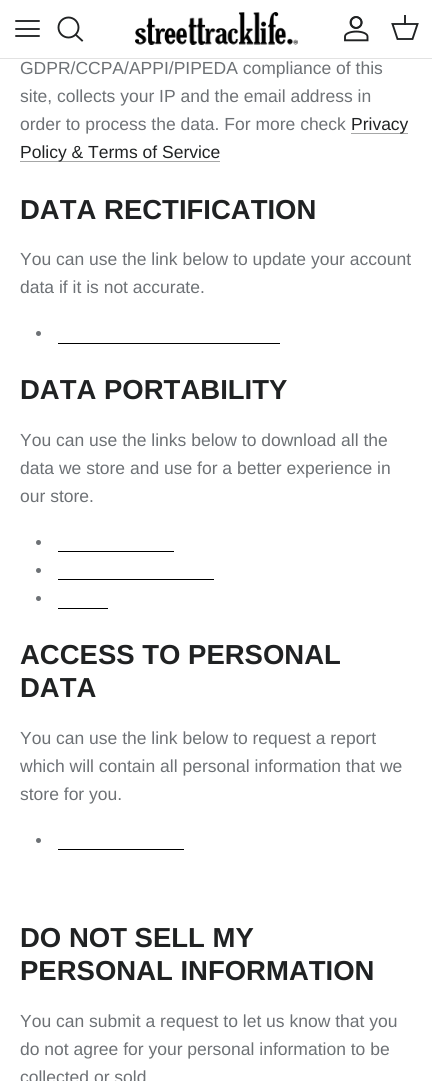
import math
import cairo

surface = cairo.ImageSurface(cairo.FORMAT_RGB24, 432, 1081)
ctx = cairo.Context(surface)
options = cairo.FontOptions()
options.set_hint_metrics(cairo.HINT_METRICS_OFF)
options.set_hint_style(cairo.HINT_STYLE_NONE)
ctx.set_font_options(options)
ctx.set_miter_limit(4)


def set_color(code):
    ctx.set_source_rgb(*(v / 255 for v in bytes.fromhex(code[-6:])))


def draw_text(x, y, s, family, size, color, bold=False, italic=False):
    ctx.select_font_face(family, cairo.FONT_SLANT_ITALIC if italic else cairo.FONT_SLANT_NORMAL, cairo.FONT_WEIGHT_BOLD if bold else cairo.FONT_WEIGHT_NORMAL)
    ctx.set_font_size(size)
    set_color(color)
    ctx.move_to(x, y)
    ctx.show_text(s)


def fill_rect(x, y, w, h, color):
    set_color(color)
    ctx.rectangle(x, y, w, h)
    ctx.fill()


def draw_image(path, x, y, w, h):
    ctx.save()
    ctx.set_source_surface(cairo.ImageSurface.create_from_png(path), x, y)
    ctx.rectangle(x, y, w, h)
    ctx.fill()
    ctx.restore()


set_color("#ffffff")
ctx.paint()
fill_rect(0, 58, 432, 1, "#e2e2e2")
ctx.new_path()
ctx.move_to(16, 29)
ctx.line_to(39, 29)
ctx.move_to(16, 21)
ctx.line_to(39, 21)
ctx.move_to(16, 36)
ctx.line_to(39, 36)
set_color("#202223")
ctx.set_line_width(1.9)
ctx.set_line_cap(cairo.LINE_CAP_ROUND)
ctx.set_line_join(cairo.LINE_JOIN_ROUND)
ctx.stroke()
ctx.arc(68.5, 27.5, 10, 0, 2 * math.pi)
ctx.set_line_cap(cairo.LINE_CAP_BUTT)
ctx.set_line_join(cairo.LINE_JOIN_MITER)
ctx.stroke()
ctx.new_path()
ctx.move_to(76, 35)
ctx.line_to(82, 40.5)
ctx.set_line_cap(cairo.LINE_CAP_SQUARE)
ctx.stroke()
draw_image("assets/img1.png", 135, 12, 163, 33)
draw_image("assets/img2.png", 344, 16, 25, 26)
ctx.new_path()
ctx.move_to(392.5, 24)
ctx.line_to(417.5, 24)
ctx.line_to(412.5, 39)
ctx.line_to(397.5, 39)
ctx.close_path()
ctx.set_line_cap(cairo.LINE_CAP_BUTT)
ctx.stroke()
ctx.set_source_rgba(0.125, 0.133, 0.137, 0.95)
ctx.rectangle(404, 15, 2, 10)
ctx.fill()
draw_text(20, 74, "GDPR/CCPA/APPI/PIPEDA compliance of this", "Liberation Sans", 17.5, "#6d7175")
draw_text(20, 102, "site, collects your IP and the email address in", "Liberation Sans", 17.5, "#6d7175")
draw_text(20, 130, "order to process the data. For more check", "Liberation Sans", 17.5, "#6d7175")
fill_rect(351, 133, 57, 1, "#a6a7a7")
draw_text(351, 130, "Privacy", "Liberation Sans", 17.5, "#202223")
fill_rect(20, 161, 200, 1, "#a6a7a7")
draw_text(20, 158, "Policy & Terms of Service", "Liberation Sans", 17.5, "#202223")
draw_text(20, 219, "DATA RECTIFICATION", "Liberation Sans", 27.5, "#202223", bold=True)
draw_text(20, 265, "You can use the link below to update your account", "Liberation Sans", 17.5, "#6d7175")
draw_text(20, 293, "data if it is not accurate.", "Liberation Sans", 17.5, "#6d7175")
ctx.new_path()
ctx.arc(38.5, 333.5, 2.5, 0, 2 * math.pi)
ctx.fill()
fill_rect(58, 343, 222, 1, "#000000")
draw_text(20, 399, "DATA PORTABILITY", "Liberation Sans", 27.5, "#202223", bold=True)
draw_text(20, 446, "You can use the links below to download all the", "Liberation Sans", 17.5, "#6d7175")
draw_text(20, 474, "data we store and use for a better experience in", "Liberation Sans", 17.5, "#6d7175")
draw_text(20, 502, "our store.", "Liberation Sans", 17.5, "#6d7175")
ctx.new_path()
ctx.arc(38.5, 542.5, 2.5, 0, 2 * math.pi)
ctx.fill()
fill_rect(58, 551, 116, 1, "#000000")
set_color("#6d7175")
ctx.arc(38.5, 570.5, 2.5, 0, 2 * math.pi)
ctx.fill()
fill_rect(58, 579, 156, 1, "#000000")
set_color("#6d7175")
ctx.arc(38.5, 598.5, 2.5, 0, 2 * math.pi)
ctx.fill()
fill_rect(58, 608, 50, 1, "#000000")
draw_text(20, 664, "ACCESS TO PERSONAL", "Liberation Sans", 27.5, "#202223", bold=True)
draw_text(20, 697, "DATA", "Liberation Sans", 27.5, "#202223", bold=True)
draw_text(20, 744, "You can use the link below to request a report", "Liberation Sans", 17.5, "#6d7175")
draw_text(20, 772, "which will contain all personal information that we", "Liberation Sans", 17.5, "#6d7175")
draw_text(20, 800, "store for you.", "Liberation Sans", 17.5, "#6d7175")
ctx.new_path()
ctx.arc(38.5, 840.5, 2.5, 0, 2 * math.pi)
ctx.fill()
fill_rect(58, 849, 126, 1, "#000000")
draw_text(20, 947, "DO NOT SELL MY", "Liberation Sans", 27.5, "#202223", bold=True)
draw_text(20, 980, "PERSONAL INFORMATION", "Liberation Sans", 27.5, "#202223", bold=True)
draw_text(20, 1027, "You can submit a request to let us know that you", "Liberation Sans", 17.5, "#6d7175")
draw_text(20, 1055, "do not agree for your personal information to be", "Liberation Sans", 17.5, "#6d7175")
draw_text(20, 1083, "collected or sold", "Liberation Sans", 17.5, "#6d7175")
surface.write_to_png("output.png")
